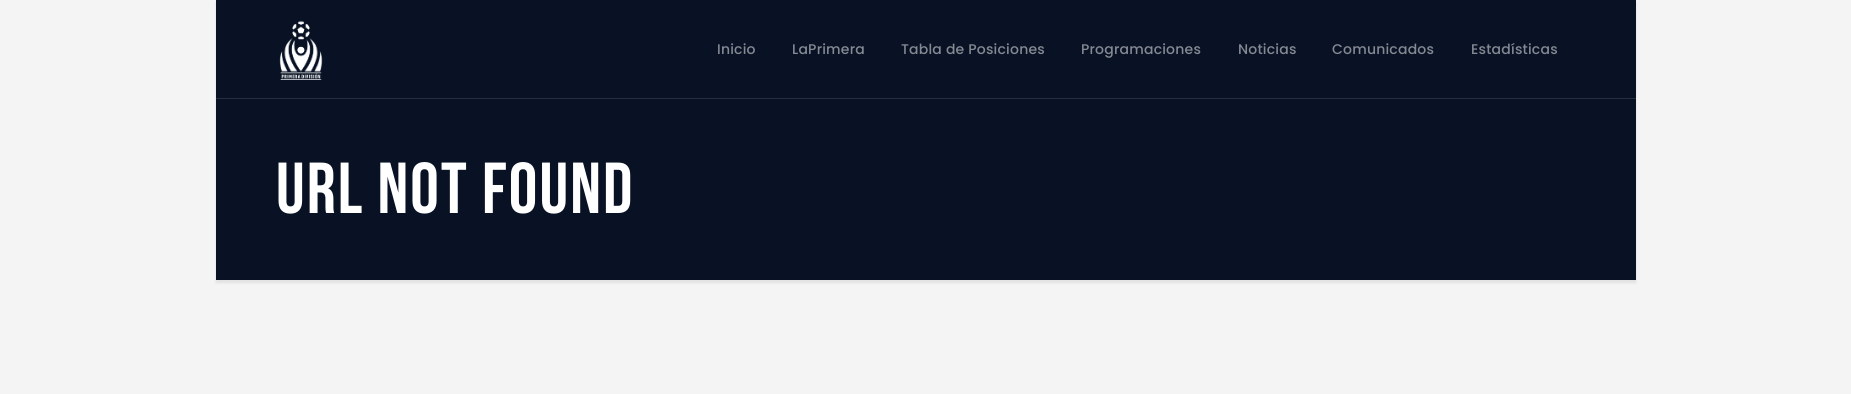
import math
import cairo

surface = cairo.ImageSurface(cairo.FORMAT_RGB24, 1851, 394)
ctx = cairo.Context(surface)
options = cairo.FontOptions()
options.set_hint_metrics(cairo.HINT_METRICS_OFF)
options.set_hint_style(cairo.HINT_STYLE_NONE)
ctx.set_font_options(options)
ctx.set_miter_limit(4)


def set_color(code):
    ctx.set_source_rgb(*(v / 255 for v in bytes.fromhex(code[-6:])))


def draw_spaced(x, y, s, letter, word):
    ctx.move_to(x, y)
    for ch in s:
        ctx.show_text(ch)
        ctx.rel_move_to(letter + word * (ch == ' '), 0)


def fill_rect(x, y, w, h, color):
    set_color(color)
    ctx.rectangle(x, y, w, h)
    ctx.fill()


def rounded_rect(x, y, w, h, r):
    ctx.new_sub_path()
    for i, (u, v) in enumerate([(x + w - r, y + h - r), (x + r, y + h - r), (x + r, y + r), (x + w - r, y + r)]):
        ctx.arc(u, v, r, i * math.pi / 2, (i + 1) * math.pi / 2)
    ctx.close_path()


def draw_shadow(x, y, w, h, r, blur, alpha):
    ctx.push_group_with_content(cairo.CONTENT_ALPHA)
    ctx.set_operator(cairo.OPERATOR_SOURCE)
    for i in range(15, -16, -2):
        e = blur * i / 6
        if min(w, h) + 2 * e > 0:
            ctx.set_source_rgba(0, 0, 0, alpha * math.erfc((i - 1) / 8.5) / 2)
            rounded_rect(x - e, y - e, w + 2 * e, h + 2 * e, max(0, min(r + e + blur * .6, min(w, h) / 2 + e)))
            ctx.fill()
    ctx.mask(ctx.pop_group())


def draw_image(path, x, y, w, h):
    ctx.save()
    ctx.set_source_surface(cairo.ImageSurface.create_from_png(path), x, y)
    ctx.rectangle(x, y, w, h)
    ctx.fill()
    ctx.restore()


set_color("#f4f4f4")
ctx.paint()
set_color("#000000")
draw_shadow(216, 3, 1420, 280, 0, 1.5, 0.08)
fill_rect(216, 0, 1420, 280, "#081224")
fill_rect(216, 98, 1420, 1, "#262f3e")
draw_image("assets/img1.png", 279, 21, 44, 59)
ctx.select_font_face("Poppins Medium")
ctx.set_font_size(14)
set_color("#848992")
draw_spaced(717, 54, "Inicio", 0.2, 0)
draw_spaced(792, 54, "LaPrimera", 0.2, 0)
draw_spaced(901, 54, "Tabla de Posiciones", 0.2, 0)
draw_spaced(1081, 54, "Programaciones", 0.2, 0)
draw_spaced(1238, 54, "Noticias", 0.2, 0)
draw_spaced(1332, 54, "Comunicados", 0.2, 0)
draw_spaced(1471, 54, "Estadísticas", 0.2, 0)
ctx.select_font_face("Bebas Neue", cairo.FONT_SLANT_NORMAL, cairo.FONT_WEIGHT_BOLD)
ctx.set_font_size(72)
set_color("#ffffff")
draw_spaced(276, 213, "URL not found", 2.1, 0)
surface.write_to_png("output.png")
